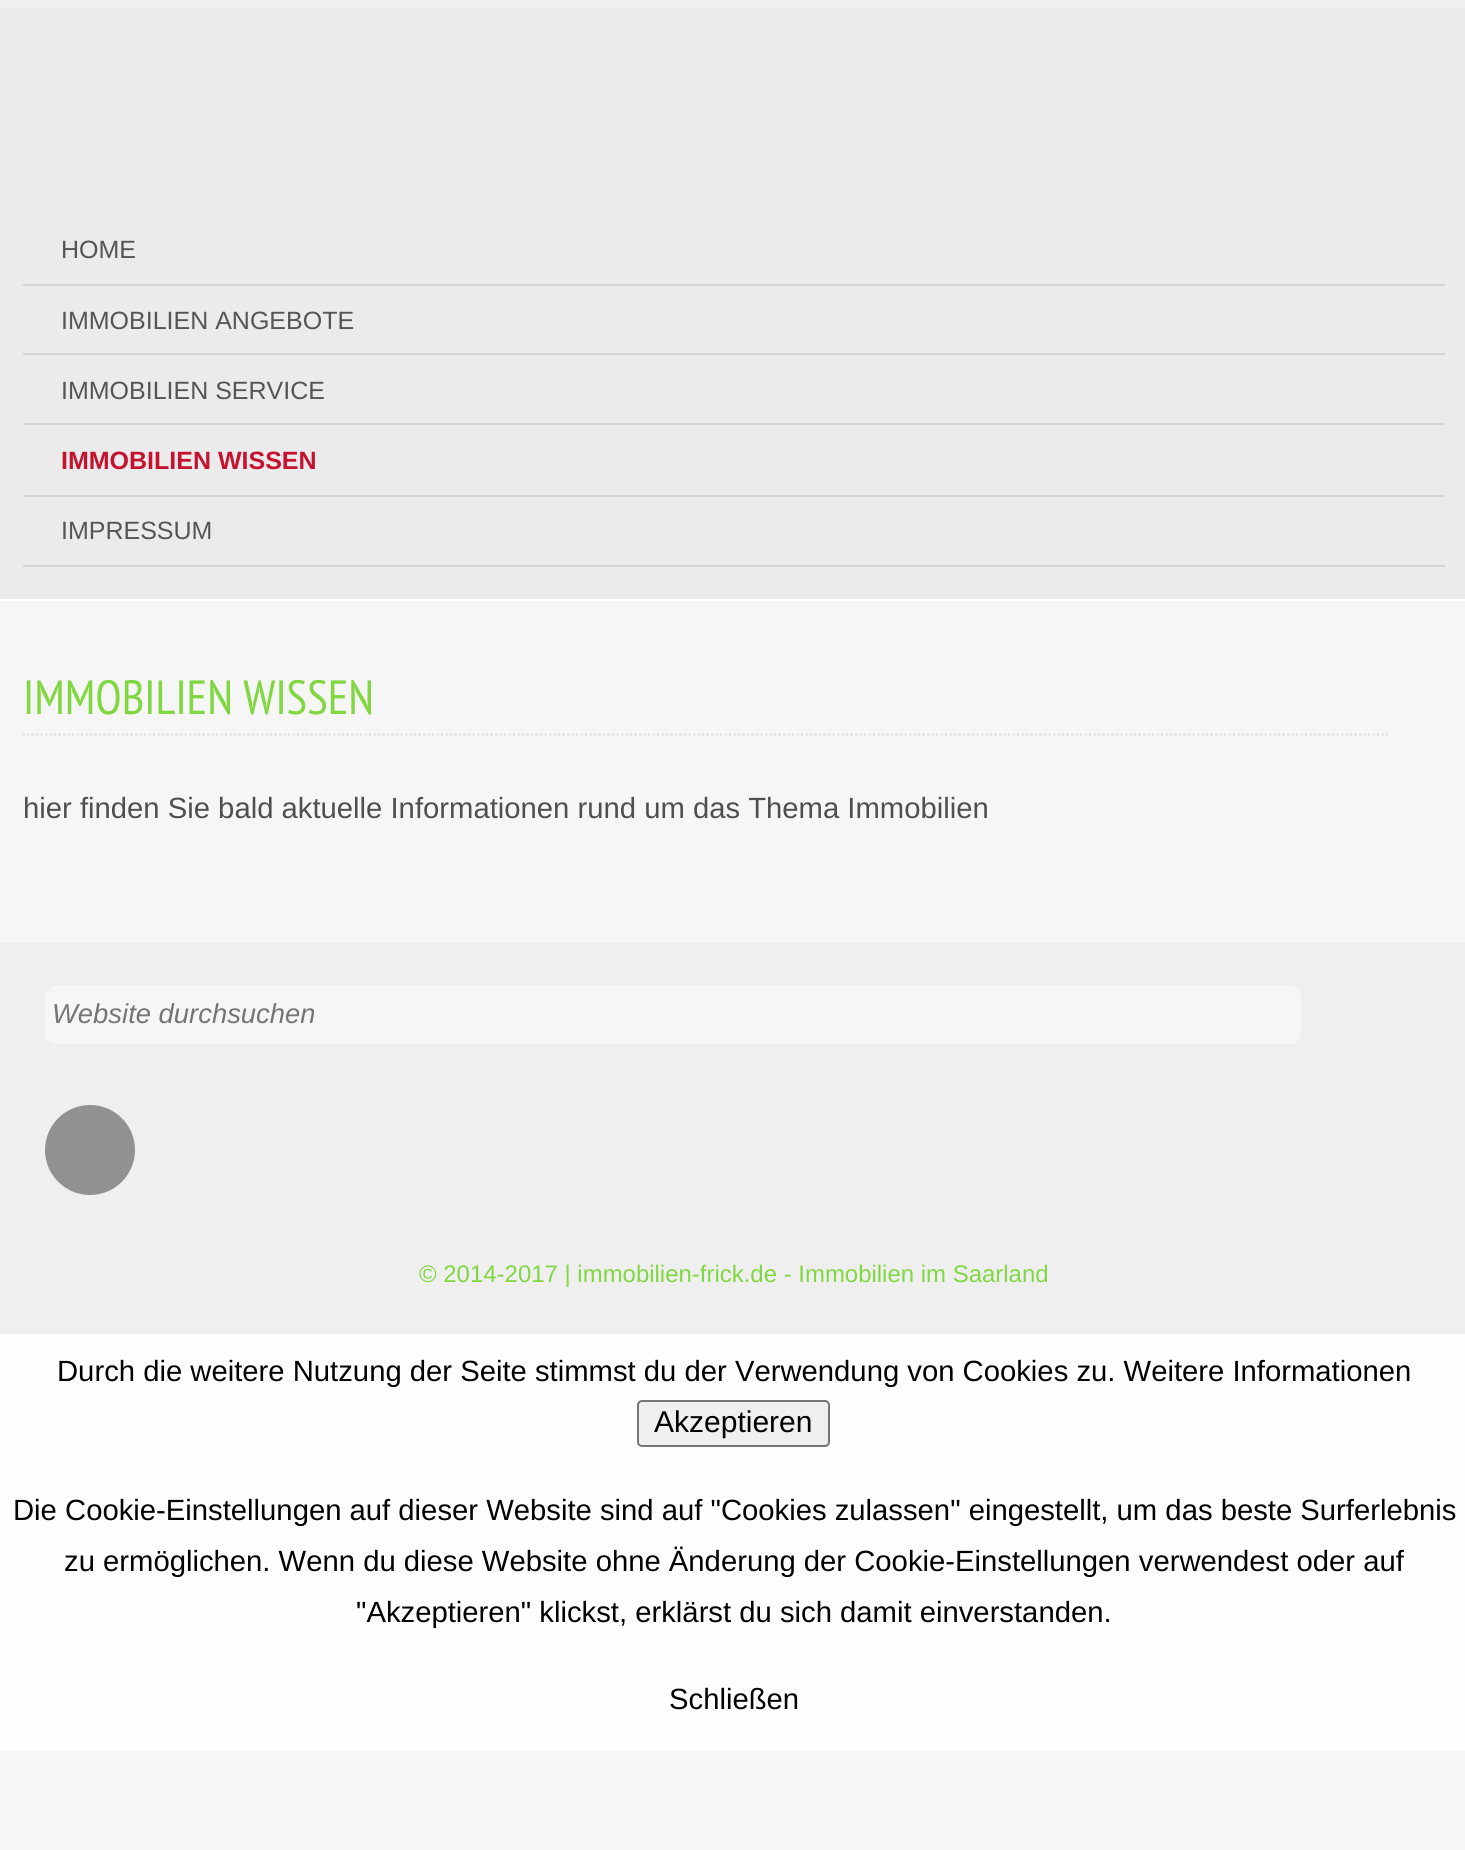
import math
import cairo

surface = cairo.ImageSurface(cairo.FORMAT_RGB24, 1465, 1850)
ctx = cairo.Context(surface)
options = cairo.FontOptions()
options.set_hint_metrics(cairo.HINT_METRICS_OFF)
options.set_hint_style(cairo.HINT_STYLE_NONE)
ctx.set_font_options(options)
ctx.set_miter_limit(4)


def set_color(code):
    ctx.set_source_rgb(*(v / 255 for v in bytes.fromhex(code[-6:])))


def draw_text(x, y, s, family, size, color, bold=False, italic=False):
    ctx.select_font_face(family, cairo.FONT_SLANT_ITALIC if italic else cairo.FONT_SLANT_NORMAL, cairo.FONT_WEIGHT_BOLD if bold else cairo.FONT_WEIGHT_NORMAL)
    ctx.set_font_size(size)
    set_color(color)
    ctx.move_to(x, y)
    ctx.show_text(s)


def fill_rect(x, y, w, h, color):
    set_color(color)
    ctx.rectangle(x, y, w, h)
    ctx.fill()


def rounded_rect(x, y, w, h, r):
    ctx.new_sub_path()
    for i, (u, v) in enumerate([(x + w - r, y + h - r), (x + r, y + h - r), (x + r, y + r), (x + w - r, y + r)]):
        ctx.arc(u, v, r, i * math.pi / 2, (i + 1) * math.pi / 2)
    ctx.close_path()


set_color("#f6f6f6")
ctx.paint()
fill_rect(0, 0, 1465, 7, "#efefef")
fill_rect(0, 7, 1465, 592, "#ebebeb")
fill_rect(0, 599, 1465, 2, "#ffffff")
fill_rect(23, 284, 1422, 2, "#d4d4d4")
draw_text(61, 258, "HOME", "Liberation Sans", 25, "#555555")
fill_rect(23, 353, 1422, 2, "#d4d4d4")
draw_text(61, 329, "IMMOBILIEN ANGEBOTE", "Liberation Sans", 25, "#555555")
fill_rect(23, 423, 1422, 2, "#d4d4d4")
draw_text(61, 399, "IMMOBILIEN SERVICE", "Liberation Sans", 25, "#555555")
fill_rect(23, 495, 1422, 2, "#d4d4d4")
draw_text(61, 469, "IMMOBILIEN WISSEN", "Liberation Sans", 25, "#c4122f", bold=True)
fill_rect(23, 565, 1422, 2, "#d4d4d4")
draw_text(61, 539, "IMPRESSUM", "Liberation Sans", 25, "#555555")
ctx.new_path()
ctx.move_to(22.5, 734.5)
ctx.line_to(1388, 734.5)
set_color("#e1e1e1")
ctx.set_line_width(2.2)
ctx.set_dash([2.25, 2.25])
ctx.stroke()
draw_text(23, 714, "IMMOBILIEN WISSEN", "PT Sans Narrow", 48, "#81d742")
draw_text(23, 818, "hier finden Sie bald aktuelle Informationen rund um das Thema Immobilien", "Liberation Sans", 29.25, "#4f4f4f")
fill_rect(0, 943, 1465, 391, "#efefef")
set_color("#f6f6f6")
rounded_rect(45, 986, 1256, 58, 11)
ctx.fill()
draw_text(52, 1023, "Website durchsuchen", "Liberation Sans", 27.4, "#757575", italic=True)
set_color("#919191")
ctx.new_path()
ctx.arc(90, 1150, 45, 0, 2 * math.pi)
ctx.fill()
ctx.new_path()
ctx.move_to(0, 1232)
ctx.line_to(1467, 1232)
set_color("#f3f3f3")
ctx.stroke()
draw_text(419, 1282, "© 2014-2017 | immobilien-frick.de - Immobilien im Saarland", "Liberation Sans", 23.95, "#81d742")
fill_rect(0, 1334, 1465, 417, "#fefefe")
draw_text(57, 1381, "Durch die weitere Nutzung der Seite stimmst du der Verwendung von Cookies zu. Weitere Informationen", "Liberation Sans", 29.25, "#000000")
set_color("#efefef")
rounded_rect(638, 1401, 191, 45, 4)
ctx.fill_preserve()
set_color("#767676")
ctx.set_line_width(2)
ctx.set_dash([])
ctx.stroke()
draw_text(654, 1432, "Akzeptieren", "Liberation Sans", 30, "#000000")
draw_text(13, 1520, "Die Cookie-Einstellungen auf dieser Website sind auf \"Cookies zulassen\" eingestellt, um das beste Surferlebnis", "Liberation Sans", 29.25, "#000000")
draw_text(64, 1571, "zu ermöglichen. Wenn du diese Website ohne Änderung der Cookie-Einstellungen verwendest oder auf", "Liberation Sans", 29.25, "#000000")
draw_text(356, 1622, "\"Akzeptieren\" klickst, erklärst du sich damit einverstanden.", "Liberation Sans", 29.25, "#000000")
draw_text(669, 1709, "Schließen", "Liberation Sans", 29.25, "#000000")
surface.write_to_png("output.png")
